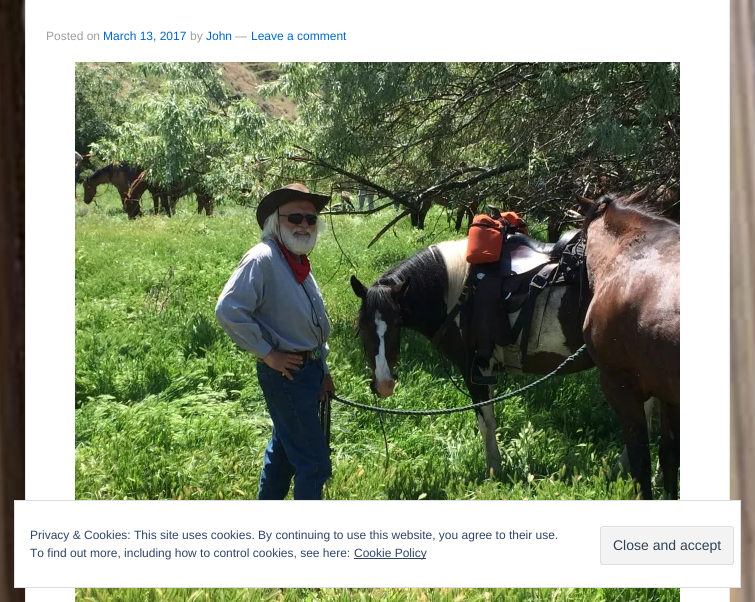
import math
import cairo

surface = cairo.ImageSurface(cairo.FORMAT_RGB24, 755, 602)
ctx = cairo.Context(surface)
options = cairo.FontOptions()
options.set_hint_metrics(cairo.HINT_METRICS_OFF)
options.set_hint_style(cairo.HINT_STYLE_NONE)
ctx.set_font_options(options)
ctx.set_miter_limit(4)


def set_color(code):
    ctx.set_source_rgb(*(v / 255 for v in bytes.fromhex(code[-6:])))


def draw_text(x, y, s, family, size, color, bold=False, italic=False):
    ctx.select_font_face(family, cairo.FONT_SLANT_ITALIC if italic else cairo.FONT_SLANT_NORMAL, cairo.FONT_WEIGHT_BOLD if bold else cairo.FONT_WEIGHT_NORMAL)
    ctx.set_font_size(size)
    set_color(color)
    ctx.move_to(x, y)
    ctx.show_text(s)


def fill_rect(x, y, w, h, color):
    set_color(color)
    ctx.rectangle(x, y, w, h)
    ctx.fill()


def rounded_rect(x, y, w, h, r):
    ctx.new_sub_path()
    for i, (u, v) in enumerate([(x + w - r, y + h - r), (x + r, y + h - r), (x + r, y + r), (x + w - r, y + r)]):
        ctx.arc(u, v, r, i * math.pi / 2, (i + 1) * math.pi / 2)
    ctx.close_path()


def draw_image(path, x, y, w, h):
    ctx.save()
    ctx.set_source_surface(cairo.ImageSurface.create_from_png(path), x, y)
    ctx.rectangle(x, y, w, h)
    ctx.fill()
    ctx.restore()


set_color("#ffffff")
ctx.paint()
draw_image("assets/img1.png", 0, 0, 755, 602)
set_color("#ffffff")
ctx.rectangle(25.5, -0.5, 704, 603)
ctx.fill_preserve()
set_color("#e5e5e5")
ctx.set_line_width(1)
ctx.stroke()
draw_text(46, 40, "Posted on", "Liberation Sans", 12, "#9f9f9f")
draw_text(103, 40, "March 13, 2017", "Liberation Sans", 12, "#0066cc")
draw_text(190, 40, "by", "Liberation Sans", 12, "#9f9f9f")
draw_text(206, 40, "John", "Liberation Sans", 12, "#0066cc")
draw_text(235, 40, "—", "Liberation Sans", 12, "#9f9f9f")
draw_text(251, 40, "Leave a comment", "Liberation Sans", 12, "#0066cc")
draw_image("assets/img2.png", 75, 62, 605, 540)
set_color("#ffffff")
ctx.rectangle(14.5, 500.5, 726, 87)
ctx.fill_preserve()
set_color("#dedede")
ctx.stroke()
draw_text(30, 539, "Privacy & Cookies: This site uses cookies. By continuing to use this website, you agree to their use.", "Liberation Sans", 12, "#2e4467")
draw_text(30, 557, "To find out more, including how to control cookies, see here:", "Liberation Sans", 12, "#2e4467")
fill_rect(354, 558, 72, 1, "#2e4467")
draw_text(354, 557, "Cookie Policy", "Liberation Sans", 12, "#2e4467")
set_color("#f3f3f3")
rounded_rect(600, 526, 134, 39, 3)
ctx.fill()
set_color("#f7f7f7")
ctx.new_path()
ctx.move_to(603, 528)
ctx.line_to(731, 528)
ctx.curve_to(732, 528, 733, 529, 733, 530)
ctx.curve_to(733, 529, 733, 527, 731, 527)
ctx.line_to(603, 527)
ctx.curve_to(601, 527, 601, 529, 601, 530)
ctx.curve_to(601, 529, 602, 528, 603, 528)
ctx.close_path()
ctx.fill()
rounded_rect(600.5, 526.5, 133, 38, 2.5)
set_color("#dedede")
ctx.stroke()
draw_text(613, 550, "Close and accept", "Liberation Sans", 14, "#2e4453")
surface.write_to_png("output.png")
